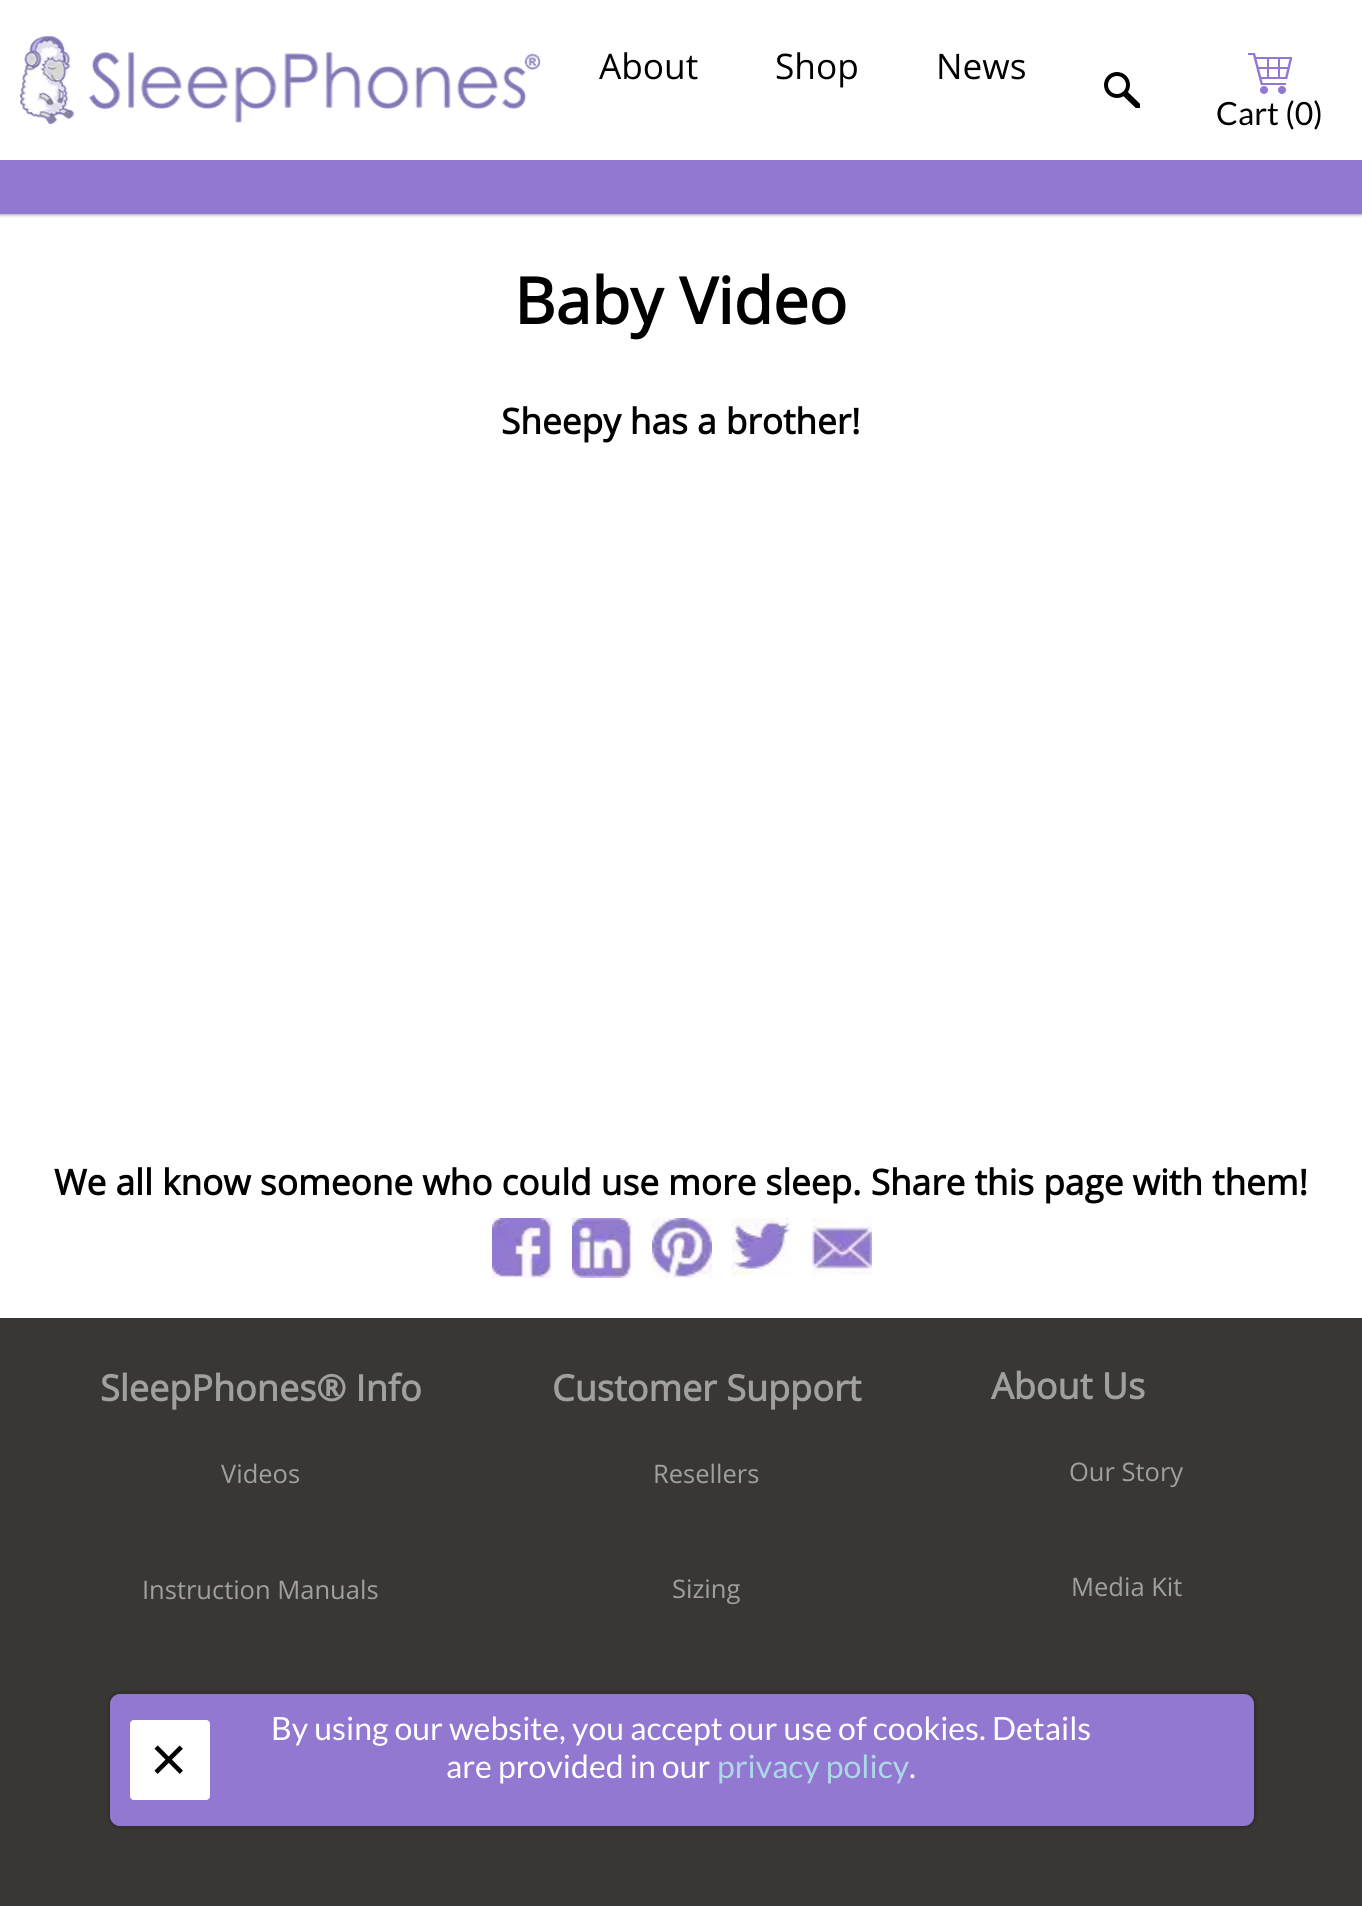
import math
import cairo

surface = cairo.ImageSurface(cairo.FORMAT_RGB24, 1362, 1906)
ctx = cairo.Context(surface)
options = cairo.FontOptions()
options.set_hint_metrics(cairo.HINT_METRICS_OFF)
options.set_hint_style(cairo.HINT_STYLE_NONE)
ctx.set_font_options(options)
ctx.set_miter_limit(4)


def set_color(code):
    ctx.set_source_rgb(*(v / 255 for v in bytes.fromhex(code[-6:])))


def draw_text(x, y, s, family, size, color, bold=False, italic=False):
    ctx.select_font_face(family, cairo.FONT_SLANT_ITALIC if italic else cairo.FONT_SLANT_NORMAL, cairo.FONT_WEIGHT_BOLD if bold else cairo.FONT_WEIGHT_NORMAL)
    ctx.set_font_size(size)
    set_color(color)
    ctx.move_to(x, y)
    ctx.show_text(s)


def fill_rect(x, y, w, h, color):
    set_color(color)
    ctx.rectangle(x, y, w, h)
    ctx.fill()


def rounded_rect(x, y, w, h, r):
    ctx.new_sub_path()
    for i, (u, v) in enumerate([(x + w - r, y + h - r), (x + r, y + h - r), (x + r, y + r), (x + w - r, y + r)]):
        ctx.arc(u, v, r, i * math.pi / 2, (i + 1) * math.pi / 2)
    ctx.close_path()


def draw_shadow(x, y, w, h, r, blur, alpha):
    ctx.push_group_with_content(cairo.CONTENT_ALPHA)
    ctx.set_operator(cairo.OPERATOR_SOURCE)
    for i in range(15, -16, -2):
        e = blur * i / 6
        if min(w, h) + 2 * e > 0:
            ctx.set_source_rgba(0, 0, 0, alpha * math.erfc((i - 1) / 8.5) / 2)
            rounded_rect(x - e, y - e, w + 2 * e, h + 2 * e, max(0, min(r + e + blur * .6, min(w, h) / 2 + e)))
            ctx.fill()
    ctx.mask(ctx.pop_group())


def draw_image(path, x, y, w, h):
    ctx.save()
    ctx.set_source_surface(cairo.ImageSurface.create_from_png(path), x, y)
    ctx.rectangle(x, y, w, h)
    ctx.fill()
    ctx.restore()


set_color("#ffffff")
ctx.paint()
set_color("#696969")
draw_shadow(0, -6, 1362, 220, 0, 2, 1)
fill_rect(0, 160, 1362, 54, "#9278d1")
fill_rect(0, 0, 1362, 160, "#ffffff")
draw_image("assets/img1.png", 20, 36, 521, 88)
draw_text(599, 79, "About", "Open Sans", 35.2, "#000000")
draw_text(775, 79, "Shop", "Open Sans", 35.2, "#000000")
draw_text(936, 79, "News", "Open Sans", 35.2, "#000000")
ctx.new_path()
ctx.arc(1117, 85, 13, 0, 2 * math.pi)
ctx.fill()
set_color("#ffffff")
ctx.arc(1117, 85, 9, 0, 2 * math.pi)
ctx.fill()
ctx.save()
ctx.rectangle(1104, 72, 36, 36)
ctx.clip()
ctx.new_path()
ctx.move_to(1124, 92.5)
ctx.line_to(1140, 108)
set_color("#000000")
ctx.set_line_width(6)
ctx.stroke()
ctx.restore()
draw_image("assets/img2.png", 1248, 53, 44, 41)
draw_text(1216, 125, "Cart (0)", "Lato", 32, "#000000")
draw_text(514, 324, "Baby Video", "Open Sans", 64, "#000000", bold=True)
draw_text(501, 434, "Sheepy has a brother!", "Open Sans", 35.2, "#000000", bold=True)
draw_text(54, 1195, "We all know someone who could use more sleep. Share this page with them!", "Open Sans", 35.2, "#000000", bold=True)
draw_image("assets/img3.png", 492, 1218, 60, 60)
draw_image("assets/img4.png", 572, 1218, 60, 60)
draw_image("assets/img5.png", 652, 1218, 60, 60)
draw_image("assets/img6.png", 732, 1218, 60, 58)
draw_image("assets/img7.png", 812, 1218, 60, 60)
fill_rect(0, 1318, 1362, 588, "#383733")
draw_text(100, 1401, "SleepPhones® Info", "Open Sans", 36, "#a0a0a0", bold=True)
draw_text(221, 1483, "Videos", "Open Sans", 25.5, "#a0a0a0")
draw_text(142, 1599, "Instruction Manuals", "Open Sans", 25.5, "#a0a0a0")
draw_text(552, 1401, "Customer Support", "Open Sans", 36, "#a0a0a0", bold=True)
draw_text(653, 1483, "Resellers", "Open Sans", 25.5, "#a0a0a0")
draw_text(672, 1598, "Sizing", "Open Sans", 25.5, "#a0a0a0")
draw_text(991, 1399, "About Us", "Open Sans", 36, "#a0a0a0", bold=True)
draw_text(1069, 1481, "Our Story", "Open Sans", 25.5, "#a0a0a0")
draw_text(1071, 1596, "Media Kit", "Open Sans", 25.5, "#a0a0a0")
set_color("#000000")
draw_shadow(108, 1692, 1148, 136, 12, 2, 0.2)
set_color("#9278d1")
rounded_rect(110, 1694, 1144, 132, 10)
ctx.fill()
set_color("#ffffff")
rounded_rect(130, 1720, 80, 80, 4)
ctx.fill()
draw_text(150, 1781, "×", "Liberation Sans", 64, "#000000")
draw_text(271, 1740, "By using our website, you accept our use of cookies. Details", "Lato", 32, "#ffffff")
draw_text(446, 1778, "are provided in our", "Lato", 32, "#ffffff")
draw_text(717, 1778, "privacy policy", "Lato", 32, "#add8e6")
draw_text(909, 1778, ".", "Lato", 32, "#ffffff")
surface.write_to_png("output.png")
